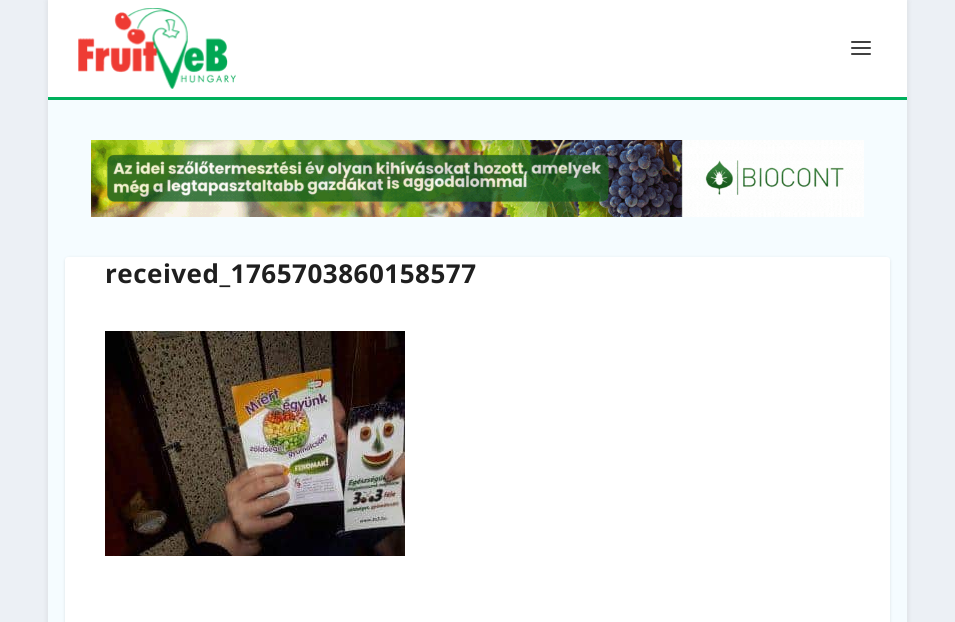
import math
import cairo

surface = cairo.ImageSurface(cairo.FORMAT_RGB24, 955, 622)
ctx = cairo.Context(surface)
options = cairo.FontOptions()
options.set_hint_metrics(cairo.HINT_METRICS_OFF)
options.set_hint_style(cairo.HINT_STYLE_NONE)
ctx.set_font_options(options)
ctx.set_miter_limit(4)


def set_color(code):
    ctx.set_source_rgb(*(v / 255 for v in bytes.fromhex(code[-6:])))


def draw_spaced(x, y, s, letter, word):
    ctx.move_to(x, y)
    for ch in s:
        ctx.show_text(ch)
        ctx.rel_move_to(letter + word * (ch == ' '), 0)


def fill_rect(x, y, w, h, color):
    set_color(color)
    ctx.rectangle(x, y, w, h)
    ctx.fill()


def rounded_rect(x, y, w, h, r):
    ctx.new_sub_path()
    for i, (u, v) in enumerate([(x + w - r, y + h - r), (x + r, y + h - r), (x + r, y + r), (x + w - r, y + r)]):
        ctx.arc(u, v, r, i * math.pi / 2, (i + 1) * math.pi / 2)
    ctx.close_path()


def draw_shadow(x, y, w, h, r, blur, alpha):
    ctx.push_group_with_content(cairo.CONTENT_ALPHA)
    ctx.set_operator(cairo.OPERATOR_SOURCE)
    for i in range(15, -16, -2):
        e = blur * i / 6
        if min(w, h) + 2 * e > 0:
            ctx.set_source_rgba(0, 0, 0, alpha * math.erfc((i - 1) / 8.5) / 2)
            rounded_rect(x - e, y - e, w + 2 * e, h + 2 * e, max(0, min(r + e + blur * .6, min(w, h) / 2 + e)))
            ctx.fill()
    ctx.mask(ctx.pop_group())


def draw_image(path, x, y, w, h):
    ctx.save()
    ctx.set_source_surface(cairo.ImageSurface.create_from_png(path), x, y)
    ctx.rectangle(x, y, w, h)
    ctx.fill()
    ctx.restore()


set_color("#ecf0f5")
ctx.paint()
set_color("#000000")
draw_shadow(48, 1, 859, 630, 0, 3, 0.1)
fill_rect(48, 100, 859, 522, "#f5fcff")
fill_rect(48, 97, 859, 3, "#00b05c")
fill_rect(48, 0, 859, 97, "#ffffff")
draw_image("assets/img1.png", 78, 8, 158, 81)
set_color("#404040")
rounded_rect(851, 41, 20, 2, 1)
ctx.fill()
rounded_rect(851, 47, 20, 2, 1)
ctx.fill()
rounded_rect(851, 53, 20, 2, 1)
ctx.fill()
draw_image("assets/img2.png", 91, 140, 773, 77)
set_color("#000000")
draw_shadow(65, 258, 825, 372, 3, 1.5, 0.1)
set_color("#ffffff")
rounded_rect(65, 257, 825, 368, 3)
ctx.fill()
ctx.select_font_face("Open Sans", cairo.FONT_SLANT_NORMAL, cairo.FONT_WEIGHT_BOLD)
ctx.set_font_size(26)
set_color("#1f1f1f")
draw_spaced(105, 283, "received_1765703860158577", 0.5, 0)
draw_image("assets/img3.png", 105, 331, 300, 225)
surface.write_to_png("output.png")
